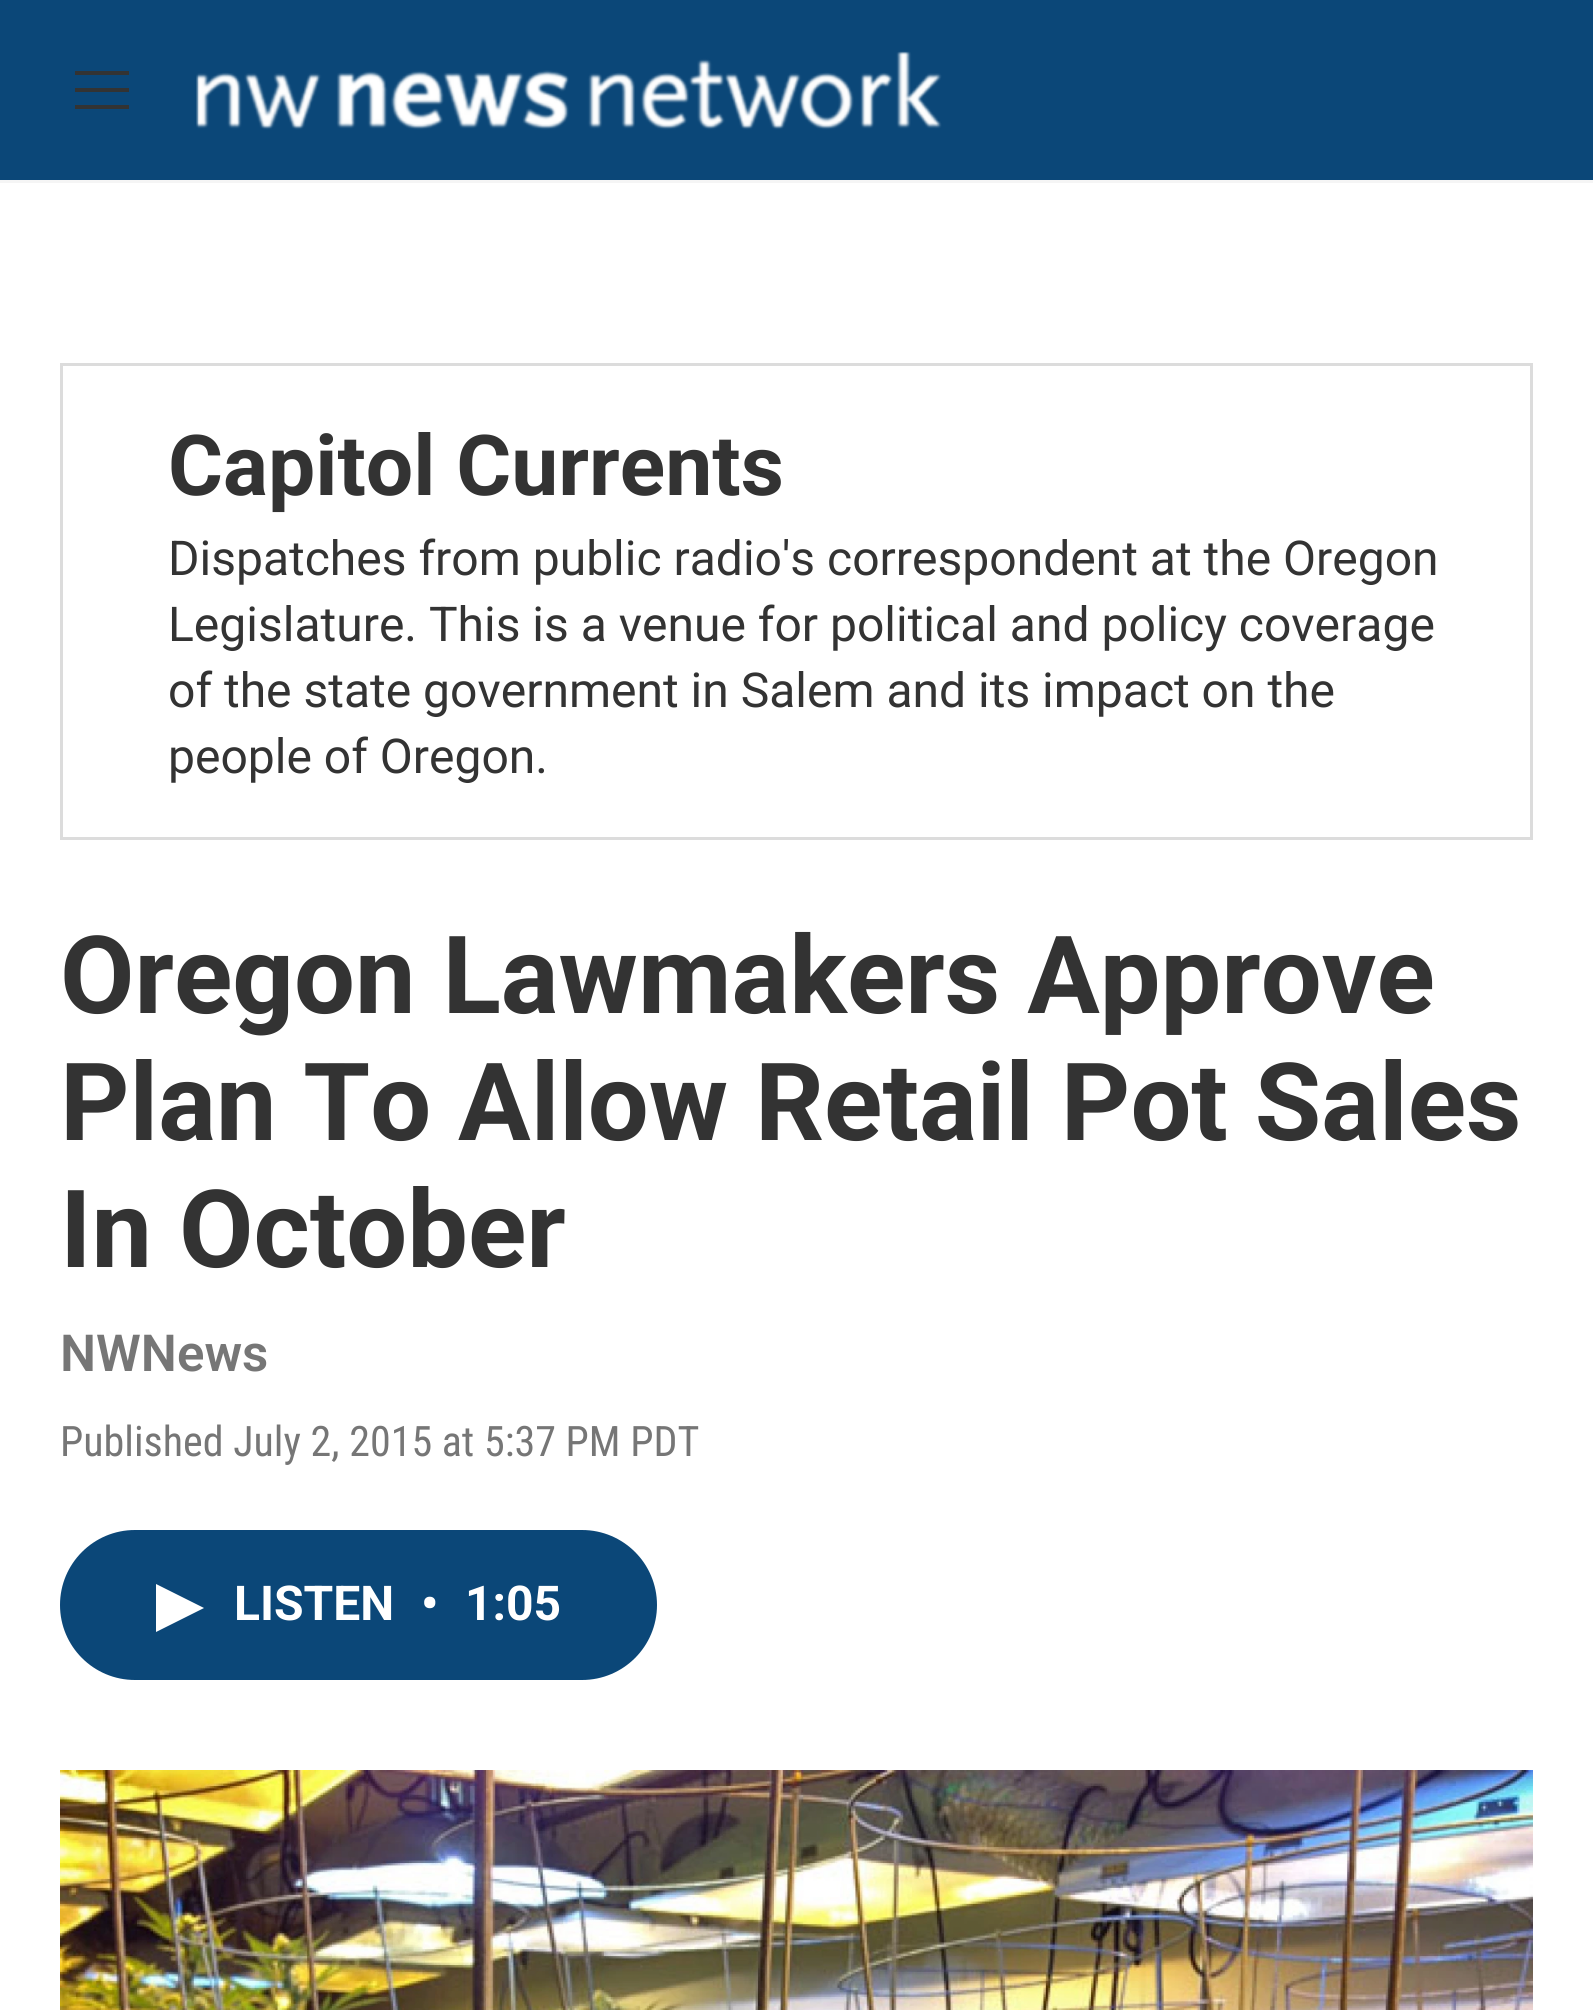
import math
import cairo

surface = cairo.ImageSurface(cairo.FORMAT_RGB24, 1593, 2010)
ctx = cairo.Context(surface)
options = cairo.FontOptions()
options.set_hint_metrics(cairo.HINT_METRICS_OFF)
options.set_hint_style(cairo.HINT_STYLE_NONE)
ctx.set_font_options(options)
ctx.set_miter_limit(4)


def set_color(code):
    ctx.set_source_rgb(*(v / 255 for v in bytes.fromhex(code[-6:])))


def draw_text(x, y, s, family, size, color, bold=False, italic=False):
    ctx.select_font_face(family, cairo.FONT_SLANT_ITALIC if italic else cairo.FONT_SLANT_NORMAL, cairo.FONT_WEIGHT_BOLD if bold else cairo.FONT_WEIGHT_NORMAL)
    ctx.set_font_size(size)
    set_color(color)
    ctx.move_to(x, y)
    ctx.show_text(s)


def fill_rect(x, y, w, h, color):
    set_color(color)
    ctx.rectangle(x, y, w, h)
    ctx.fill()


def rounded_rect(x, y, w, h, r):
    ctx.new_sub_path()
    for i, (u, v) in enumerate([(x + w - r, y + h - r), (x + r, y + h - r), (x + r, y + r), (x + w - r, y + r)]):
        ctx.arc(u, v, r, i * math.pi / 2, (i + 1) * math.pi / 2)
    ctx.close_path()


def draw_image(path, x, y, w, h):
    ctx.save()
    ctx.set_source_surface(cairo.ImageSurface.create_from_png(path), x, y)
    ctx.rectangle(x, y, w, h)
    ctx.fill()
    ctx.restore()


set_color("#ffffff")
ctx.paint()
fill_rect(0, 0, 1593, 180, "#0b4778")
fill_rect(0, 180, 1593, 3, "#f5f5f5")
set_color("#333333")
ctx.set_fill_rule(cairo.FILL_RULE_EVEN_ODD)
ctx.new_path()
ctx.move_to(75, 92)
ctx.line_to(75, 88)
ctx.line_to(129, 88)
ctx.line_to(129, 92)
ctx.close_path()
ctx.move_to(75, 75)
ctx.line_to(75, 71)
ctx.line_to(129, 71)
ctx.line_to(129, 75)
ctx.close_path()
ctx.move_to(75, 109)
ctx.line_to(75, 105)
ctx.line_to(129, 105)
ctx.line_to(129, 109)
ctx.close_path()
ctx.fill()
draw_image("assets/img1.png", 196, 51, 746, 79)
ctx.rectangle(61.5, 364.5, 1470, 474)
set_color("#dcdcdc")
ctx.set_line_width(3)
ctx.stroke()
draw_text(168, 495, "Capitol Currents", "Roboto", 84, "#333333", bold=True)
draw_text(168, 575, "Dispatches from public radio's correspondent at the Oregon", "Roboto", 48, "#333333")
draw_text(168, 641, "Legislature. This is a venue for political and policy coverage", "Roboto", 48, "#333333")
draw_text(168, 707, "of the state government in Salem and its impact on the", "Roboto", 48, "#333333")
draw_text(168, 773, "people of Oregon.", "Roboto", 48, "#333333")
draw_text(60, 1013, "Oregon Lawmakers Approve", "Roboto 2", 108, "#333333", bold=True)
draw_text(60, 1140, "Plan To Allow Retail Pot Sales", "Roboto 2", 108, "#333333", bold=True)
draw_text(60, 1267, "In October", "Roboto 2", 108, "#333333", bold=True)
draw_text(60, 1371, "NWNews", "Roboto SemiBold", 51, "#767676")
draw_text(60, 1456, "Published July 2, 2015 at 5:37 PM PDT", "Roboto Condensed", 42, "#767676")
set_color("#0b4778")
rounded_rect(60, 1530, 597, 150, 75)
ctx.fill()
set_color("#ffffff")
ctx.set_fill_rule(cairo.FILL_RULE_WINDING)
ctx.new_path()
ctx.move_to(156, 1584)
ctx.line_to(204, 1608)
ctx.line_to(156, 1632)
ctx.close_path()
ctx.fill()
draw_text(234, 1620, "LISTEN", "Roboto", 48, "#ffffff", bold=True)
draw_text(421, 1620, "•", "Roboto", 48, "#ffffff", bold=True)
draw_text(465, 1620, "1:05", "Roboto", 48, "#ffffff", bold=True)
draw_image("assets/img2.png", 60, 1770, 1473, 240)
surface.write_to_png("output.png")
